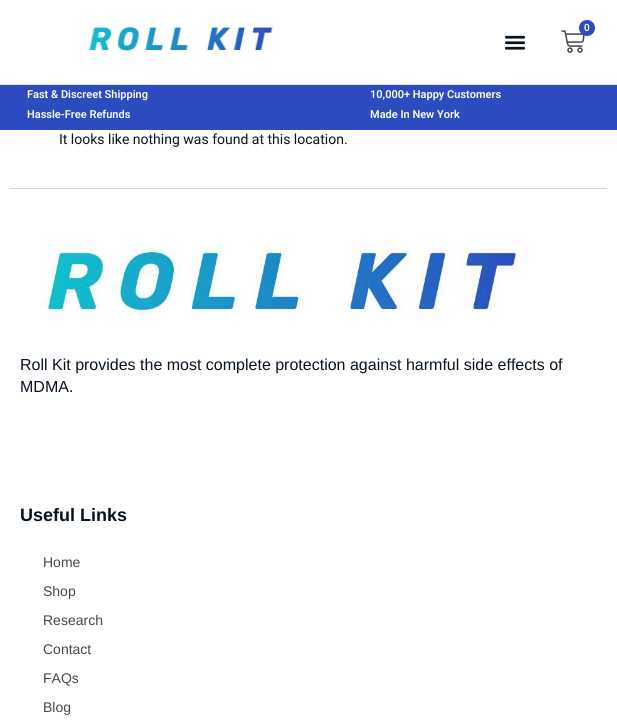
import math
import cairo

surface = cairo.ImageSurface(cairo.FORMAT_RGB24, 617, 726)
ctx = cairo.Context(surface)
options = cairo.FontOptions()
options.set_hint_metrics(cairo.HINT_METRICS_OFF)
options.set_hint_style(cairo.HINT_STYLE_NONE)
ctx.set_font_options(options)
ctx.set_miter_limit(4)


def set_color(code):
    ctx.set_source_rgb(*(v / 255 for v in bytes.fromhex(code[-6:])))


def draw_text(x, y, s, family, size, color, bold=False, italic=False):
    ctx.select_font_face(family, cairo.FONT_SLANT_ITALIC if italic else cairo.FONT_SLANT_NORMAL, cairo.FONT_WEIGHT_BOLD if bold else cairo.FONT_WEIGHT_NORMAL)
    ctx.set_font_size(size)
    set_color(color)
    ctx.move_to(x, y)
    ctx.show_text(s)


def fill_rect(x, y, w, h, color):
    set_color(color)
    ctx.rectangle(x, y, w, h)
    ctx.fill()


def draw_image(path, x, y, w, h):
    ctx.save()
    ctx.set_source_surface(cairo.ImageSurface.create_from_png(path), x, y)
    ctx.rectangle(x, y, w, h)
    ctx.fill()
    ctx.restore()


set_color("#ffffff")
ctx.paint()
fill_rect(0, 84, 617, 1, "#dfe2eb")
draw_image("assets/img1.png", 87, 24, 187, 28)
draw_image("assets/img2.png", 561, 30, 24, 23)
set_color("#2b4bbf")
ctx.arc(587, 28, 8, 0, 2 * math.pi)
ctx.fill()
draw_text(584, 31, "0", "Roboto SemiBold", 10, "#ffffff")
draw_image("assets/img3.png", 504, 35, 22, 15)
fill_rect(0, 85, 617, 45, "#2b4bbf")
draw_text(27, 98, "Fast & Discreet Shipping", "Roboto SemiBold", 11, "#ffffff")
draw_text(370, 98, "10,000+ Happy Customers", "Roboto SemiBold", 11, "#ffffff")
draw_text(27, 118, "Hassle-Free Refunds", "Roboto SemiBold", 11, "#ffffff")
draw_text(370, 118, "Made In New York", "Roboto SemiBold", 11, "#ffffff")
draw_text(59, 144, "It looks like nothing was found at this location.", "Roboto", 14, "#081320")
fill_rect(10, 188, 597, 1, "#d5d5d5")
draw_image("assets/img4.png", 40, 244, 482, 70)
draw_text(20, 370, "Roll Kit provides the most complete protection against harmful side effects of", "Liberation Sans", 16, "#081320")
draw_text(20, 392, "MDMA.", "Liberation Sans", 16, "#081320")
draw_text(20, 521, "Useful Links", "Liberation Sans", 18, "#081320", bold=True)
draw_text(43, 567, "Home", "Liberation Sans", 14, "#474747")
draw_text(43, 596, "Shop", "Liberation Sans", 14, "#474747")
draw_text(43, 625, "Research", "Liberation Sans", 14, "#474747")
draw_text(43, 654, "Contact", "Liberation Sans", 14, "#474747")
draw_text(43, 683, "FAQs", "Liberation Sans", 14, "#474747")
draw_text(43, 712, "Blog", "Liberation Sans", 14, "#474747")
surface.write_to_png("output.png")
